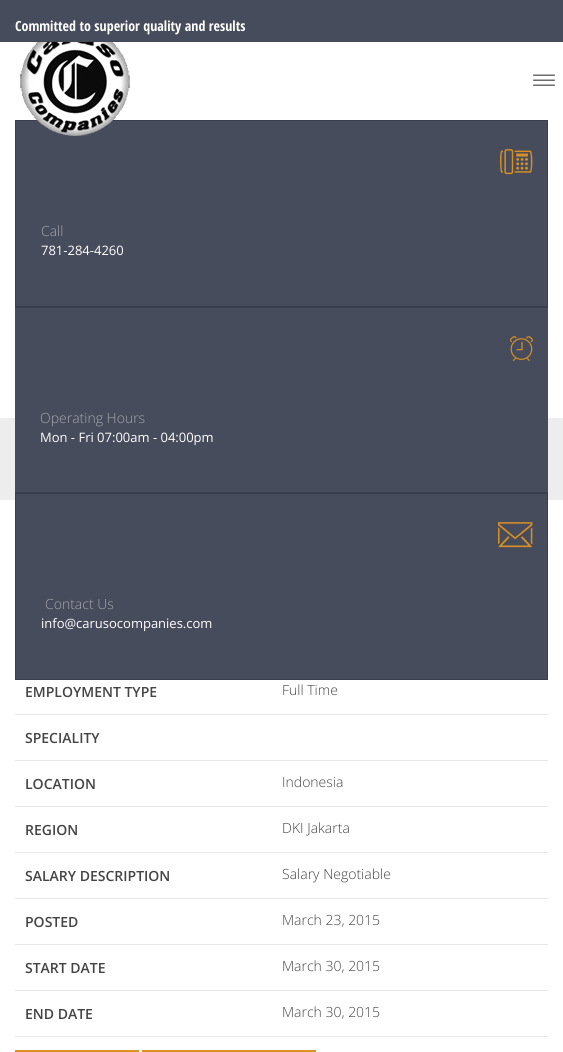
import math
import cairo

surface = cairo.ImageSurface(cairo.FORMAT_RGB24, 563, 1052)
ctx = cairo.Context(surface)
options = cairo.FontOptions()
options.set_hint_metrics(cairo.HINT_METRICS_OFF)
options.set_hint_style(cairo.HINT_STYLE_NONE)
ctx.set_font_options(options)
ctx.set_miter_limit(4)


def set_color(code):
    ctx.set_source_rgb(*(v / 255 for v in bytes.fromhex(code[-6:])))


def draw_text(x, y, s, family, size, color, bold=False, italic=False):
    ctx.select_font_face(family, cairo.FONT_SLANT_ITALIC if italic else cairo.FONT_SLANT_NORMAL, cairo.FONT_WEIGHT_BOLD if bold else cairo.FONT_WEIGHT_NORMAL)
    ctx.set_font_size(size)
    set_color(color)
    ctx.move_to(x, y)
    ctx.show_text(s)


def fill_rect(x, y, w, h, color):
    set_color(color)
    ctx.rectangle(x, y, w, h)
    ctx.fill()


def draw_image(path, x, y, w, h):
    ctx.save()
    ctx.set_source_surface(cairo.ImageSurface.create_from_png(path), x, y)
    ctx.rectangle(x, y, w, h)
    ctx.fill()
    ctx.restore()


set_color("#ffffff")
ctx.paint()
fill_rect(0, 0, 563, 41, "#474c5c")
fill_rect(0, 41, 563, 1, "#434756")
draw_text(15, 31, "Committed to superior quality and results", "Open Sans Condensed", 14, "#ffffff", bold=True)
set_color("#474c5c")
ctx.rectangle(15.5, 120.5, 532, 186)
ctx.fill_preserve()
set_color("#393e4f")
ctx.set_line_width(1)
ctx.stroke()
draw_image("assets/img1.png", 20, 42, 110, 94)
draw_image("assets/img2.png", 533, 74, 22, 12)
draw_image("assets/img3.png", 500, 149, 33, 26)
draw_text(41, 236, "Call", "Open Sans Light", 14, "#a3a6ae")
draw_text(41, 255, "781-284-4260", "Open Sans", 13, "#ffffff")
fill_rect(0, 418, 563, 82, "#ededed")
fill_rect(15, 308, 533, 184, "#474c5c")
fill_rect(15, 307, 533, 1, "#393e4f")
fill_rect(15, 492, 533, 1, "#393e4f")
draw_image("assets/img4.png", 510, 336, 23, 25)
draw_text(40, 423, "Operating Hours", "Open Sans Light", 14, "#a3a6ae")
draw_text(40, 442, "Mon - Fri 07:00am - 04:00pm", "Open Sans", 13, "#ffffff")
set_color("#474c5c")
ctx.rectangle(15.5, 493.5, 532, 186)
ctx.fill_preserve()
set_color("#393e4f")
ctx.stroke()
draw_image("assets/img5.png", 498, 522, 35, 26)
draw_text(45, 609, "Contact Us", "Open Sans Light", 14, "#a3a6ae")
draw_text(41, 628, "info@carusocompanies.com", "Open Sans", 13, "#ffffff")
draw_text(25, 697, "EMPLOYMENT TYPE", "Open Sans SemiBold", 14, "#444444")
draw_text(282, 695, "Full Time", "Open Sans Light", 14, "#444444")
fill_rect(15, 714, 533, 1, "#e6e6e6")
draw_text(25, 743, "SPECIALITY", "Open Sans SemiBold", 14, "#444444")
fill_rect(15, 760, 533, 1, "#e6e6e6")
draw_text(25, 789, "LOCATION", "Open Sans SemiBold", 14, "#444444")
draw_text(282, 787, "Indonesia", "Open Sans Light", 14, "#444444")
fill_rect(15, 806, 533, 1, "#e6e6e6")
draw_text(25, 835, "REGION", "Open Sans SemiBold", 14, "#444444")
draw_text(282, 833, "DKI Jakarta", "Open Sans Light", 14, "#444444")
fill_rect(15, 852, 533, 1, "#e6e6e6")
draw_text(25, 881, "SALARY DESCRIPTION", "Open Sans SemiBold", 14, "#444444")
draw_text(282, 879, "Salary Negotiable", "Open Sans Light", 14, "#444444")
fill_rect(15, 898, 533, 1, "#e6e6e6")
draw_text(25, 927, "POSTED", "Open Sans SemiBold", 14, "#444444")
draw_text(282, 925, "March 23, 2015", "Open Sans Light", 14, "#444444")
fill_rect(15, 944, 533, 1, "#e6e6e6")
draw_text(25, 973, "START DATE", "Open Sans SemiBold", 14, "#444444")
draw_text(282, 971, "March 30, 2015", "Open Sans Light", 14, "#444444")
fill_rect(15, 990, 533, 1, "#e6e6e6")
fill_rect(15, 1036, 533, 1, "#e6e6e6")
draw_text(25, 1019, "END DATE", "Open Sans SemiBold", 14, "#444444")
draw_text(282, 1017, "March 30, 2015", "Open Sans Light", 14, "#444444")
fill_rect(15, 1050, 124, 2, "#db9224")
fill_rect(142, 1050, 174, 2, "#db9224")
surface.write_to_png("output.png")
